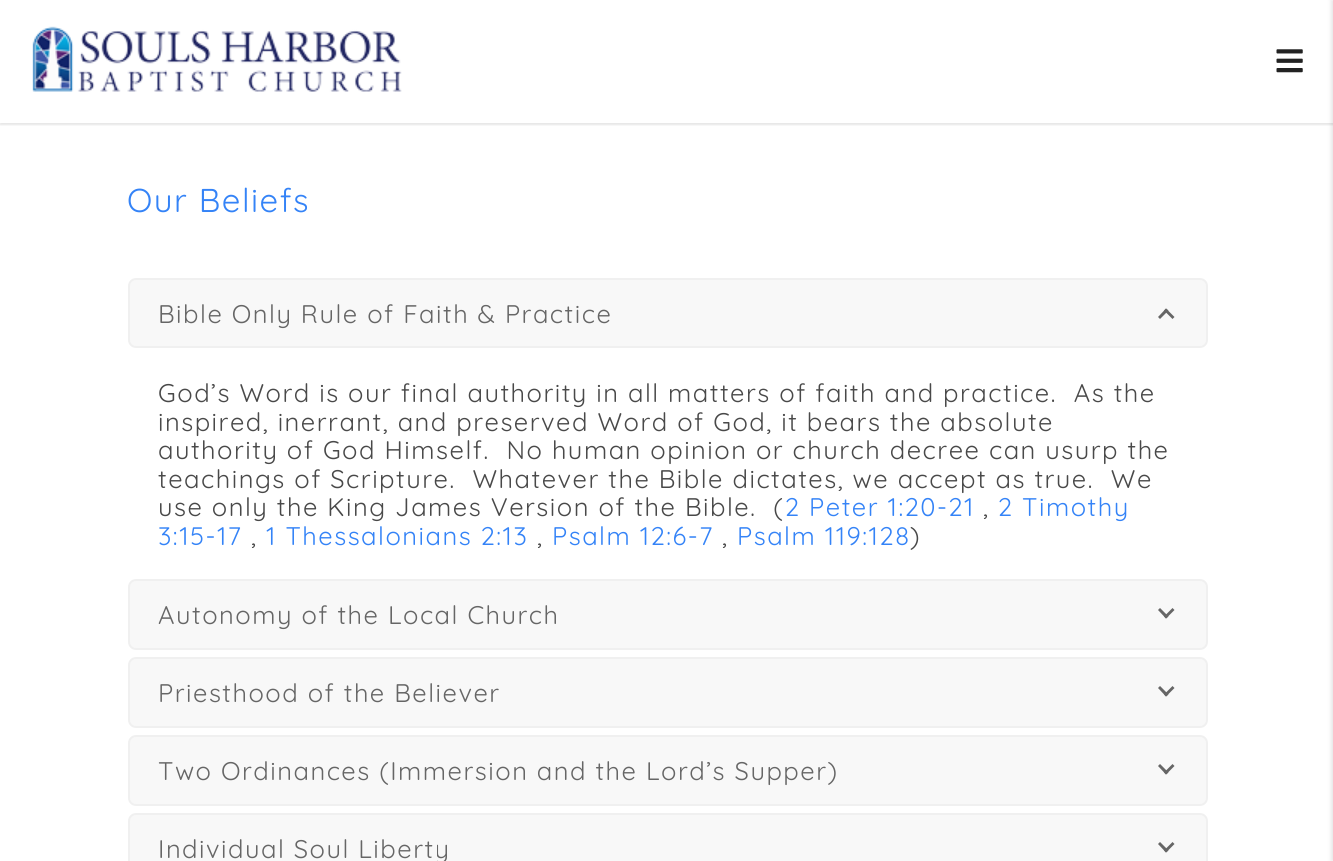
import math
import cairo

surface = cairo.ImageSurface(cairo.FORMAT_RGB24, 1333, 861)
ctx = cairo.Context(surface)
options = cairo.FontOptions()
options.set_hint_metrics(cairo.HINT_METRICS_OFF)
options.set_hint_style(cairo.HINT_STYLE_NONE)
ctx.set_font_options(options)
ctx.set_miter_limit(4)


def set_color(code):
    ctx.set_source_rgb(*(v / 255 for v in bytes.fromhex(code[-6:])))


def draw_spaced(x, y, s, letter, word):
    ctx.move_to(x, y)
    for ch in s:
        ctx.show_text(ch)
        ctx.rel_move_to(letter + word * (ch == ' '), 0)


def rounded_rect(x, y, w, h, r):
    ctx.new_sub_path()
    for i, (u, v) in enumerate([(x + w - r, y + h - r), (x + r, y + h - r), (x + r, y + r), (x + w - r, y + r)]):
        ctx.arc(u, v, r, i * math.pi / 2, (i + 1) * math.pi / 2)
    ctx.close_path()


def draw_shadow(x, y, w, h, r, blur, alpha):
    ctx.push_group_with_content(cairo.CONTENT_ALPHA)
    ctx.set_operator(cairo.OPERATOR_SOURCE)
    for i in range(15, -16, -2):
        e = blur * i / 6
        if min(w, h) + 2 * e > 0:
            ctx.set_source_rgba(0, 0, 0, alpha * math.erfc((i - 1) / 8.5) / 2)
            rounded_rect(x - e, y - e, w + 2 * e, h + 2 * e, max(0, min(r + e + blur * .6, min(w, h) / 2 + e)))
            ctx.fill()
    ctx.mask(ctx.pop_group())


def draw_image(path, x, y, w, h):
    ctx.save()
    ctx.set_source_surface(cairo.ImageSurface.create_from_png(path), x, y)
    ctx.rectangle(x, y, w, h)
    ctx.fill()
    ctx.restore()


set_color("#ffffff")
ctx.paint()
ctx.save()
ctx.rectangle(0, 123, 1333, 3)
ctx.clip()
set_color("#000000")
draw_shadow(0, 2, 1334, 123, 0, 1, 0.1)
ctx.restore()
draw_image("assets/img1.png", 32, 26, 370, 66)
draw_image("assets/img2.png", 1276, 49, 27, 24)
ctx.select_font_face("Quicksand Light")
ctx.set_font_size(33)
set_color("#3483f7")
draw_spaced(127, 212, "Our Beliefs", 1.5, 0)
set_color("#f8f8f8")
rounded_rect(129, 279, 1078, 68, 7)
ctx.fill_preserve()
set_color("#f0f0f0")
ctx.stroke()
ctx.set_font_size(25.5)
set_color("#666666")
draw_spaced(158, 323, "Bible Only Rule of Faith & Practice", 1.5, 0)
ctx.new_path()
ctx.move_to(1160, 319)
ctx.line_to(1158, 317)
ctx.line_to(1166, 308.5)
ctx.line_to(1168.5, 310.5)
ctx.close_path()
ctx.fill()
ctx.new_path()
ctx.move_to(1172.5, 319)
ctx.line_to(1164, 310.5)
ctx.line_to(1166, 308.5)
ctx.line_to(1174.5, 317)
ctx.close_path()
ctx.fill()
set_color("#494949")
draw_spaced(158, 402, "God’s Word is our final authority in all matters of faith and practice.  As the", 1.5, 0)
draw_spaced(158, 431, "inspired, inerrant, and preserved Word of God, it bears the absolute", 1.5, 0)
draw_spaced(158, 459, "authority of God Himself.  No human opinion or church decree can usurp the", 1.5, 0)
draw_spaced(158, 488, "teachings of Scripture.  Whatever the Bible dictates, we accept as true.  We", 1.5, 0)
draw_spaced(158, 516, "use only the King James Version of the Bible.  (", 1.5, 0)
set_color("#3483f7")
draw_spaced(785, 516, "2 Peter 1:20-21", 1.5, 0)
set_color("#494949")
draw_spaced(983, 516, ",", 1.5, 0)
set_color("#3483f7")
draw_spaced(998, 516, "2 Timothy", 1.5, 0)
draw_spaced(158, 545, "3:15-17", 1.5, 0)
set_color("#494949")
draw_spaced(251, 545, ",", 1.5, 0)
set_color("#3483f7")
draw_spaced(266, 545, "1 Thessalonians 2:13", 1.5, 0)
set_color("#494949")
draw_spaced(537, 545, ",", 1.5, 0)
set_color("#3483f7")
draw_spaced(552, 545, "Psalm 12:6-7", 1.5, 0)
set_color("#494949")
draw_spaced(722, 545, ",", 1.5, 0)
set_color("#3483f7")
draw_spaced(737, 545, "Psalm 119:128", 1.5, 0)
set_color("#494949")
draw_spaced(910, 545, ")", 1.5, 0)
set_color("#f8f8f8")
rounded_rect(129, 580, 1078, 69, 7)
ctx.fill_preserve()
set_color("#f0f0f0")
ctx.stroke()
set_color("#666666")
draw_spaced(158, 624, "Autonomy of the Local Church", 1.5, 0)
ctx.new_path()
ctx.move_to(1172.5, 608)
ctx.line_to(1174.5, 610)
ctx.line_to(1166, 618.5)
ctx.line_to(1164, 616.5)
ctx.close_path()
ctx.fill()
ctx.new_path()
ctx.move_to(1160, 608)
ctx.line_to(1168.5, 616.5)
ctx.line_to(1166, 618.5)
ctx.line_to(1158, 610)
ctx.close_path()
ctx.fill()
set_color("#f8f8f8")
rounded_rect(129, 658, 1078, 69, 7)
ctx.fill_preserve()
set_color("#f0f0f0")
ctx.stroke()
set_color("#666666")
draw_spaced(158, 702, "Priesthood of the Believer", 1.5, 0)
ctx.new_path()
ctx.move_to(1172.5, 686)
ctx.line_to(1174.5, 688)
ctx.line_to(1166, 696.5)
ctx.line_to(1164, 694.5)
ctx.close_path()
ctx.fill()
ctx.new_path()
ctx.move_to(1160, 686)
ctx.line_to(1168.5, 694.5)
ctx.line_to(1166, 696.5)
ctx.line_to(1158, 688)
ctx.close_path()
ctx.fill()
set_color("#f8f8f8")
rounded_rect(129, 736, 1078, 69, 7)
ctx.fill_preserve()
set_color("#f0f0f0")
ctx.stroke()
set_color("#666666")
draw_spaced(158, 780, "Two Ordinances (Immersion and the Lord’s Supper)", 1.5, 0)
ctx.new_path()
ctx.move_to(1172.5, 764)
ctx.line_to(1174.5, 766)
ctx.line_to(1166, 774.5)
ctx.line_to(1164, 772.5)
ctx.close_path()
ctx.fill()
ctx.new_path()
ctx.move_to(1160, 764)
ctx.line_to(1168.5, 772.5)
ctx.line_to(1166, 774.5)
ctx.line_to(1158, 766)
ctx.close_path()
ctx.fill()
set_color("#f8f8f8")
rounded_rect(129, 814, 1078, 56, 7)
ctx.fill_preserve()
set_color("#f0f0f0")
ctx.stroke()
set_color("#666666")
draw_spaced(158, 858, "Individual Soul Liberty", 1.5, 0)
ctx.new_path()
ctx.move_to(1172.5, 842)
ctx.line_to(1174.5, 844)
ctx.line_to(1166, 852.5)
ctx.line_to(1164, 850.5)
ctx.close_path()
ctx.fill()
ctx.new_path()
ctx.move_to(1160, 842)
ctx.line_to(1168.5, 850.5)
ctx.line_to(1166, 852.5)
ctx.line_to(1158, 844)
ctx.close_path()
ctx.fill()
set_color("#000000")
draw_shadow(1331, 0, 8, 861, 0, 2, 0.1)
surface.write_to_png("output.png")
